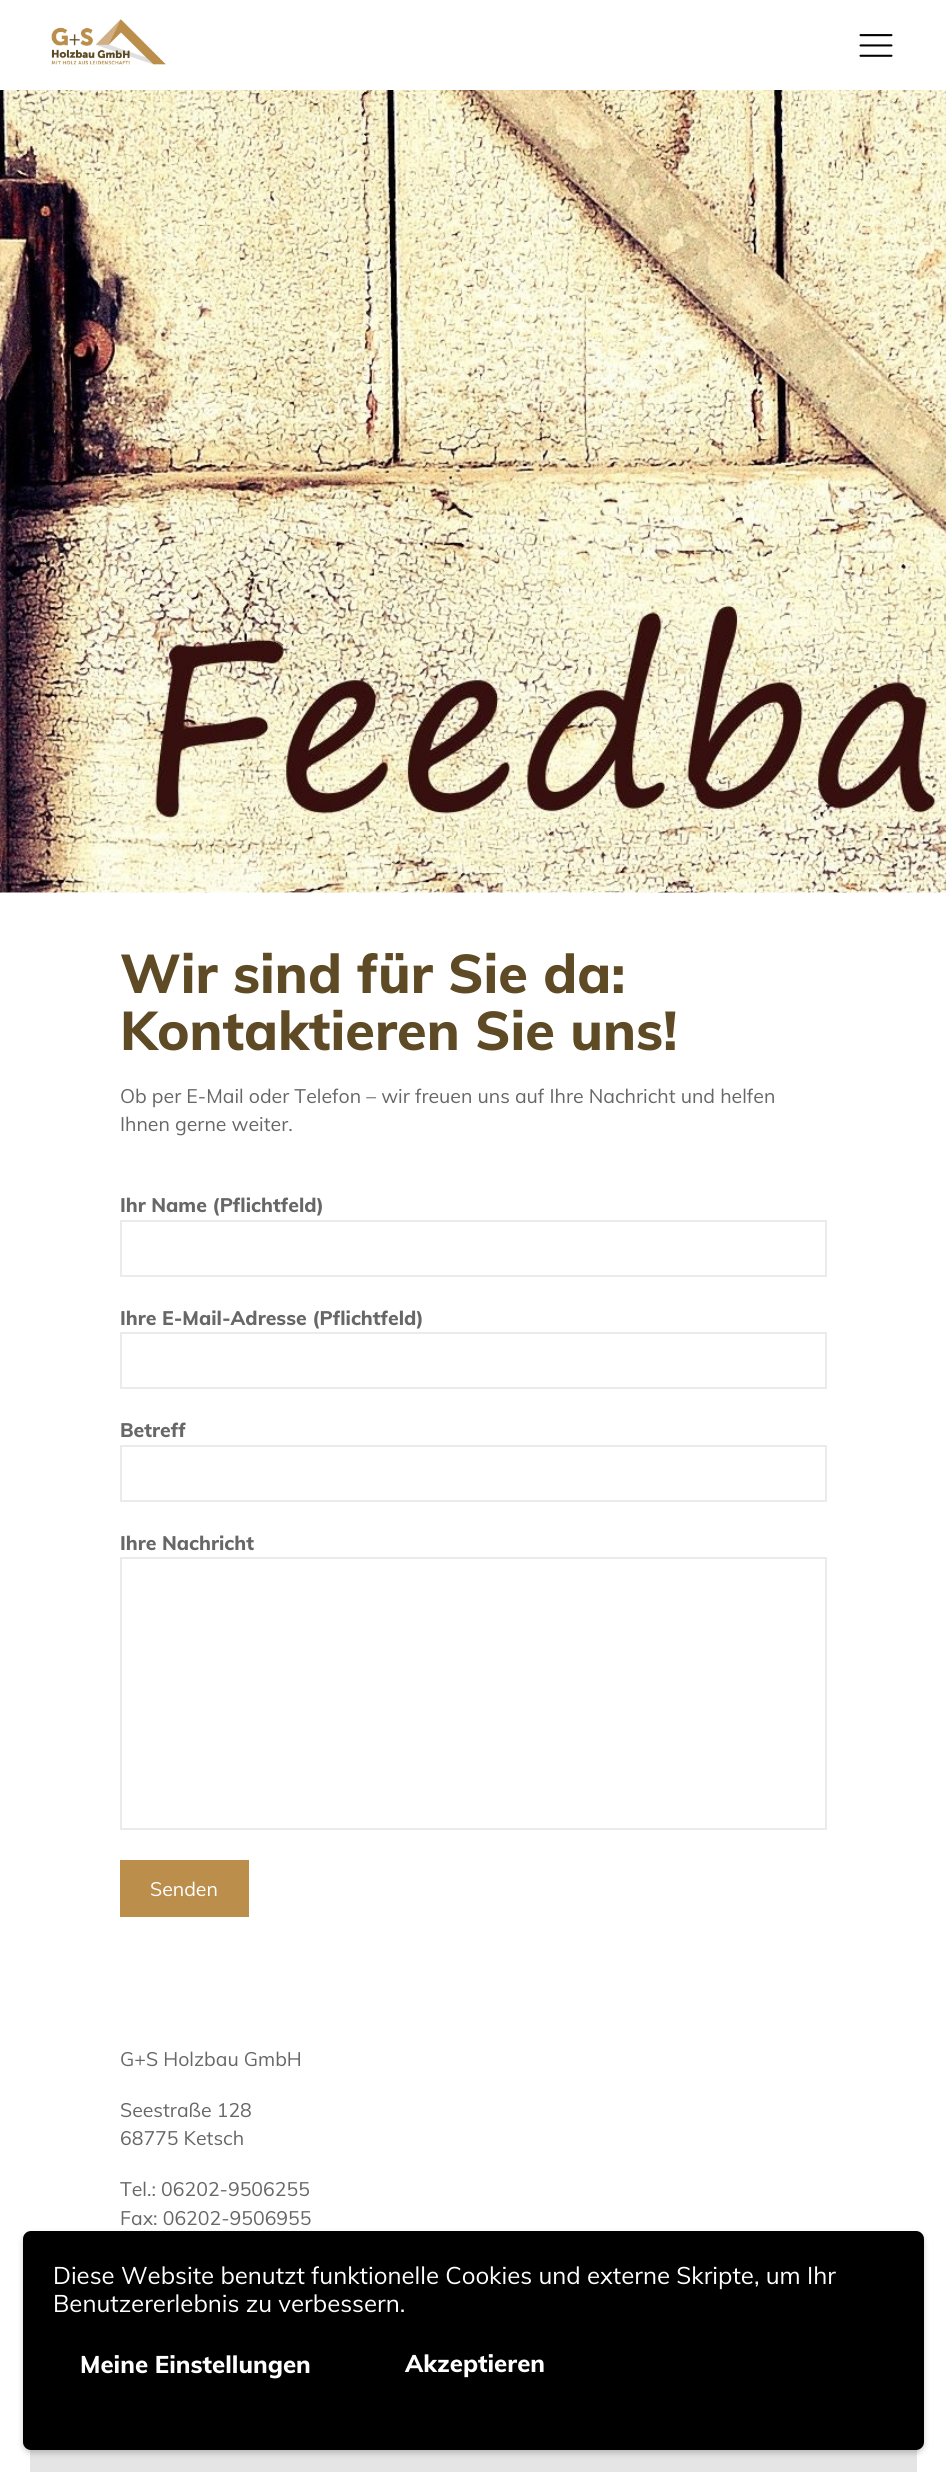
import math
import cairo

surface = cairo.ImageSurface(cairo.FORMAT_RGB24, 946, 2472)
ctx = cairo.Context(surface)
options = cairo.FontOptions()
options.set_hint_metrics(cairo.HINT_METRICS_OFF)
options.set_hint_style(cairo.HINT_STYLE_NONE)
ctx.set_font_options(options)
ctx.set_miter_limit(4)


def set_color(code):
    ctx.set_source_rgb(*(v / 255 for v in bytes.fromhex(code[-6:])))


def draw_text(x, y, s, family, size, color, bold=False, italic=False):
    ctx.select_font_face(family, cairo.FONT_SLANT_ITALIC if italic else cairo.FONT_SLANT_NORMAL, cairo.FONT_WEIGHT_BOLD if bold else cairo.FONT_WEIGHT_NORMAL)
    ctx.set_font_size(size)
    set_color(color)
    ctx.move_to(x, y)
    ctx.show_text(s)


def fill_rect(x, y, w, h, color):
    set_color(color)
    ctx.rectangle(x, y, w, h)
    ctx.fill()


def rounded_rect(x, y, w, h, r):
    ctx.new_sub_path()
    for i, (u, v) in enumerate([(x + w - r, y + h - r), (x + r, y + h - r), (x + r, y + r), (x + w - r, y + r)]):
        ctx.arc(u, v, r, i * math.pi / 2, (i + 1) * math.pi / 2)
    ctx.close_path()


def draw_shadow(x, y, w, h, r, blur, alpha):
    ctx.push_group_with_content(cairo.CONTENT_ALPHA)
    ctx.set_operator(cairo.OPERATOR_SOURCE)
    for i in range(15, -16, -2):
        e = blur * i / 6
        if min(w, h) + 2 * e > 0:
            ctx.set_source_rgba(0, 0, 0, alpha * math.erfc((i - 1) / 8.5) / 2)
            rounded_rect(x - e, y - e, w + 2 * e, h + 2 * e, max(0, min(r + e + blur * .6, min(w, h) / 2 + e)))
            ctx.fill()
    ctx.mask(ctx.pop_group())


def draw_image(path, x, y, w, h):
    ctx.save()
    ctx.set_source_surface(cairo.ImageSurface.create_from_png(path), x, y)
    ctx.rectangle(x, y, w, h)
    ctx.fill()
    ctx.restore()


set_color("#ffffff")
ctx.paint()
draw_image("assets/img1.png", 51, 19, 115, 46)
draw_image("assets/img2.png", 859, 34, 34, 23)
draw_image("assets/img3.png", 0, 90, 946, 803)
draw_text(120, 993, "Wir sind für Sie da:", "Muli ExtraBold", 54, "#5e4b25")
draw_text(120, 1050, "Kontaktieren Sie uns!", "Muli ExtraBold", 54, "#5e4b25")
draw_text(120, 1103, "Ob per E-Mail oder Telefon – wir freuen uns auf Ihre Nachricht und helfen", "Muli", 19.5, "#686767")
draw_text(120, 1131, "Ihnen gerne weiter.", "Muli", 19.5, "#686767")
draw_text(120, 1212, "Ihr Name (Pflichtfeld)", "Muli ExtraBold", 19.5, "#686767")
ctx.rectangle(121, 1221, 705, 55)
set_color("#ebebeb")
ctx.stroke()
draw_text(120, 1325, "Ihre E-Mail-Adresse (Pflichtfeld)", "Muli ExtraBold", 19.5, "#686767")
ctx.rectangle(121, 1333, 705, 55)
set_color("#ebebeb")
ctx.stroke()
draw_text(120, 1437, "Betreff", "Muli ExtraBold", 19.5, "#686767")
ctx.rectangle(121, 1446, 705, 55)
set_color("#ebebeb")
ctx.stroke()
draw_text(120, 1550, "Ihre Nachricht", "Muli ExtraBold", 19.5, "#686767")
ctx.rectangle(121, 1558, 705, 271)
set_color("#ebebeb")
ctx.stroke()
fill_rect(120, 1860, 129, 57, "#bb8e4b")
draw_text(150, 1896, "Senden", "Muli", 19.5, "#ffffff")
draw_text(120, 2066, "G+S Holzbau GmbH", "Muli", 19.5, "#686767")
draw_text(120, 2117, "Seestraße 128", "Muli", 19.5, "#686767")
draw_text(120, 2145, "68775 Ketsch", "Muli", 19.5, "#686767")
draw_text(120, 2196, "Tel.: 06202-9506255", "Muli", 19.5, "#686767")
draw_text(120, 2225, "Fax: 06202-9506955", "Muli", 19.5, "#686767")
fill_rect(30, 2449, 887, 23, "#e5e5e5")
set_color("#000000")
draw_shadow(23, 2234, 901, 219, 8, 3, 0.2)
set_color("#000000")
rounded_rect(23, 2231, 901, 219, 8)
ctx.fill()
draw_text(53, 2284, "Diese Website benutzt funktionelle Cookies und externe Skripte, um Ihr", "Muli", 24, "#ffffff")
draw_text(53, 2312, "Benutzererlebnis zu verbessern.", "Muli", 24, "#ffffff")
draw_text(80, 2373, "Meine Einstellungen", "Muli ExtraBold", 24, "#ffffff")
draw_text(405, 2372, "Akzeptieren", "Muli ExtraBold", 24, "#ffffff")
surface.write_to_png("output.png")
